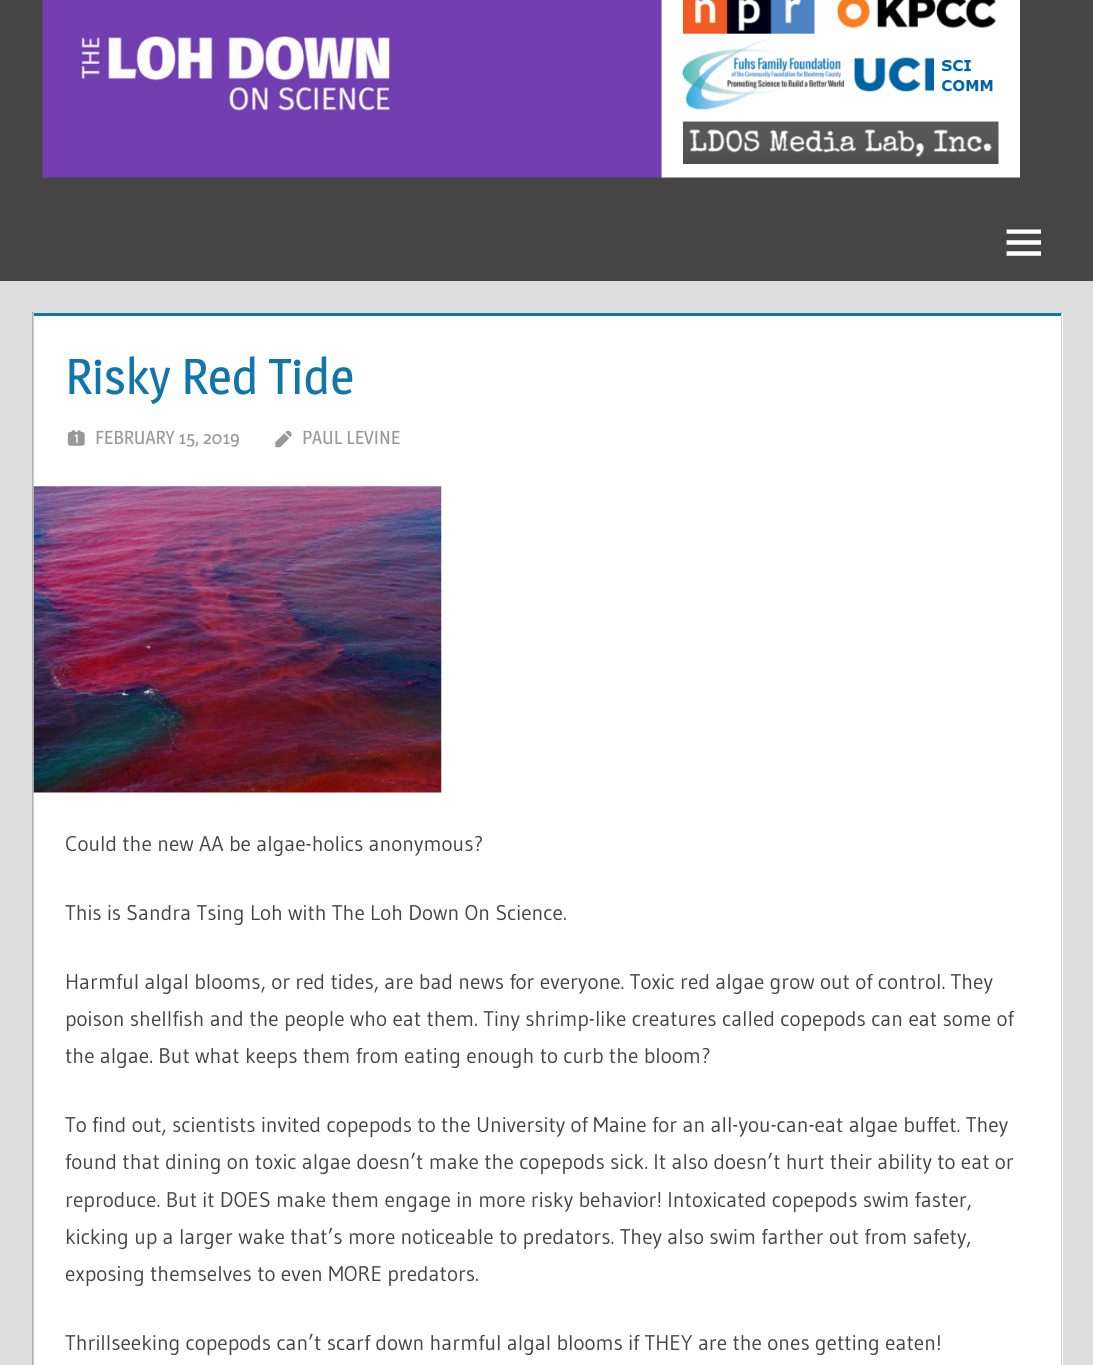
import math
import cairo

surface = cairo.ImageSurface(cairo.FORMAT_RGB24, 1093, 1365)
ctx = cairo.Context(surface)
options = cairo.FontOptions()
options.set_hint_metrics(cairo.HINT_METRICS_OFF)
options.set_hint_style(cairo.HINT_STYLE_NONE)
ctx.set_font_options(options)
ctx.set_miter_limit(4)


def set_color(code):
    ctx.set_source_rgb(*(v / 255 for v in bytes.fromhex(code[-6:])))


def draw_text(x, y, s, family, size, color, bold=False, italic=False):
    ctx.select_font_face(family, cairo.FONT_SLANT_ITALIC if italic else cairo.FONT_SLANT_NORMAL, cairo.FONT_WEIGHT_BOLD if bold else cairo.FONT_WEIGHT_NORMAL)
    ctx.set_font_size(size)
    set_color(color)
    ctx.move_to(x, y)
    ctx.show_text(s)


def fill_rect(x, y, w, h, color):
    set_color(color)
    ctx.rectangle(x, y, w, h)
    ctx.fill()


def draw_image(path, x, y, w, h):
    ctx.save()
    ctx.set_source_surface(cairo.ImageSurface.create_from_png(path), x, y)
    ctx.rectangle(x, y, w, h)
    ctx.fill()
    ctx.restore()


set_color("#dddddd")
ctx.paint()
fill_rect(0, 0, 1093, 281, "#454545")
draw_image("assets/img1.png", 42, 0, 978, 178)
draw_image("assets/img2.png", 1006, 229, 35, 27)
fill_rect(33, 313, 1030, 1052, "#ffffff")
fill_rect(34, 313, 1027, 3, "#1177aa")
ctx.set_source_rgba(0, 0, 0, 0.2)
ctx.new_path()
ctx.move_to(1062, 312)
ctx.line_to(1062, 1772)
ctx.line_to(1061, 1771)
ctx.line_to(1061, 312)
ctx.close_path()
ctx.fill()
ctx.new_path()
ctx.move_to(32, 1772)
ctx.line_to(32, 312)
ctx.line_to(34, 312)
ctx.line_to(34, 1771)
ctx.close_path()
ctx.fill()
draw_text(65, 394, "Risky Red Tide", "Magra", 50, "#1177aa")
draw_image("assets/img3.png", 67, 430, 18, 16)
draw_text(95, 444, "FEBRUARY 15, 2019", "Magra", 18.75, "#999999")
draw_image("assets/img4.png", 274, 430, 18, 18)
draw_text(302, 444, "PAUL LEVINE", "Magra", 18.75, "#999999")
draw_image("assets/img5.png", 33, 486, 409, 307)
draw_text(65, 851, "Could the new AA be algae-holics anonymous?", "Gudea", 21.25, "#454545")
draw_text(65, 920, "This is Sandra Tsing Loh with The Loh Down On Science.", "Gudea", 21.25, "#454545")
draw_text(65, 989, "Harmful algal blooms, or red tides, are bad news for everyone. Toxic red algae grow out of control. They", "Gudea", 21.25, "#454545")
draw_text(65, 1026, "poison shellfish and the people who eat them. Tiny shrimp-like creatures called copepods can eat some of", "Gudea", 21.25, "#454545")
draw_text(65, 1063, "the algae. But what keeps them from eating enough to curb the bloom?", "Gudea", 21.25, "#454545")
draw_text(65, 1132, "To find out, scientists invited copepods to the University of Maine for an all-you-can-eat algae buffet. They", "Gudea", 21.25, "#454545")
draw_text(65, 1169, "found that dining on toxic algae doesn’t make the copepods sick. It also doesn’t hurt their ability to eat or", "Gudea", 21.25, "#454545")
draw_text(65, 1207, "reproduce. But it DOES make them engage in more risky behavior! Intoxicated copepods swim faster,", "Gudea", 21.25, "#454545")
draw_text(65, 1244, "kicking up a larger wake that’s more noticeable to predators. They also swim farther out from safety,", "Gudea", 21.25, "#454545")
draw_text(65, 1281, "exposing themselves to even MORE predators.", "Gudea", 21.25, "#454545")
draw_text(65, 1350, "Thrillseeking copepods can’t scarf down harmful algal blooms if THEY are the ones getting eaten!", "Gudea", 21.25, "#454545")
surface.write_to_png("output.png")
